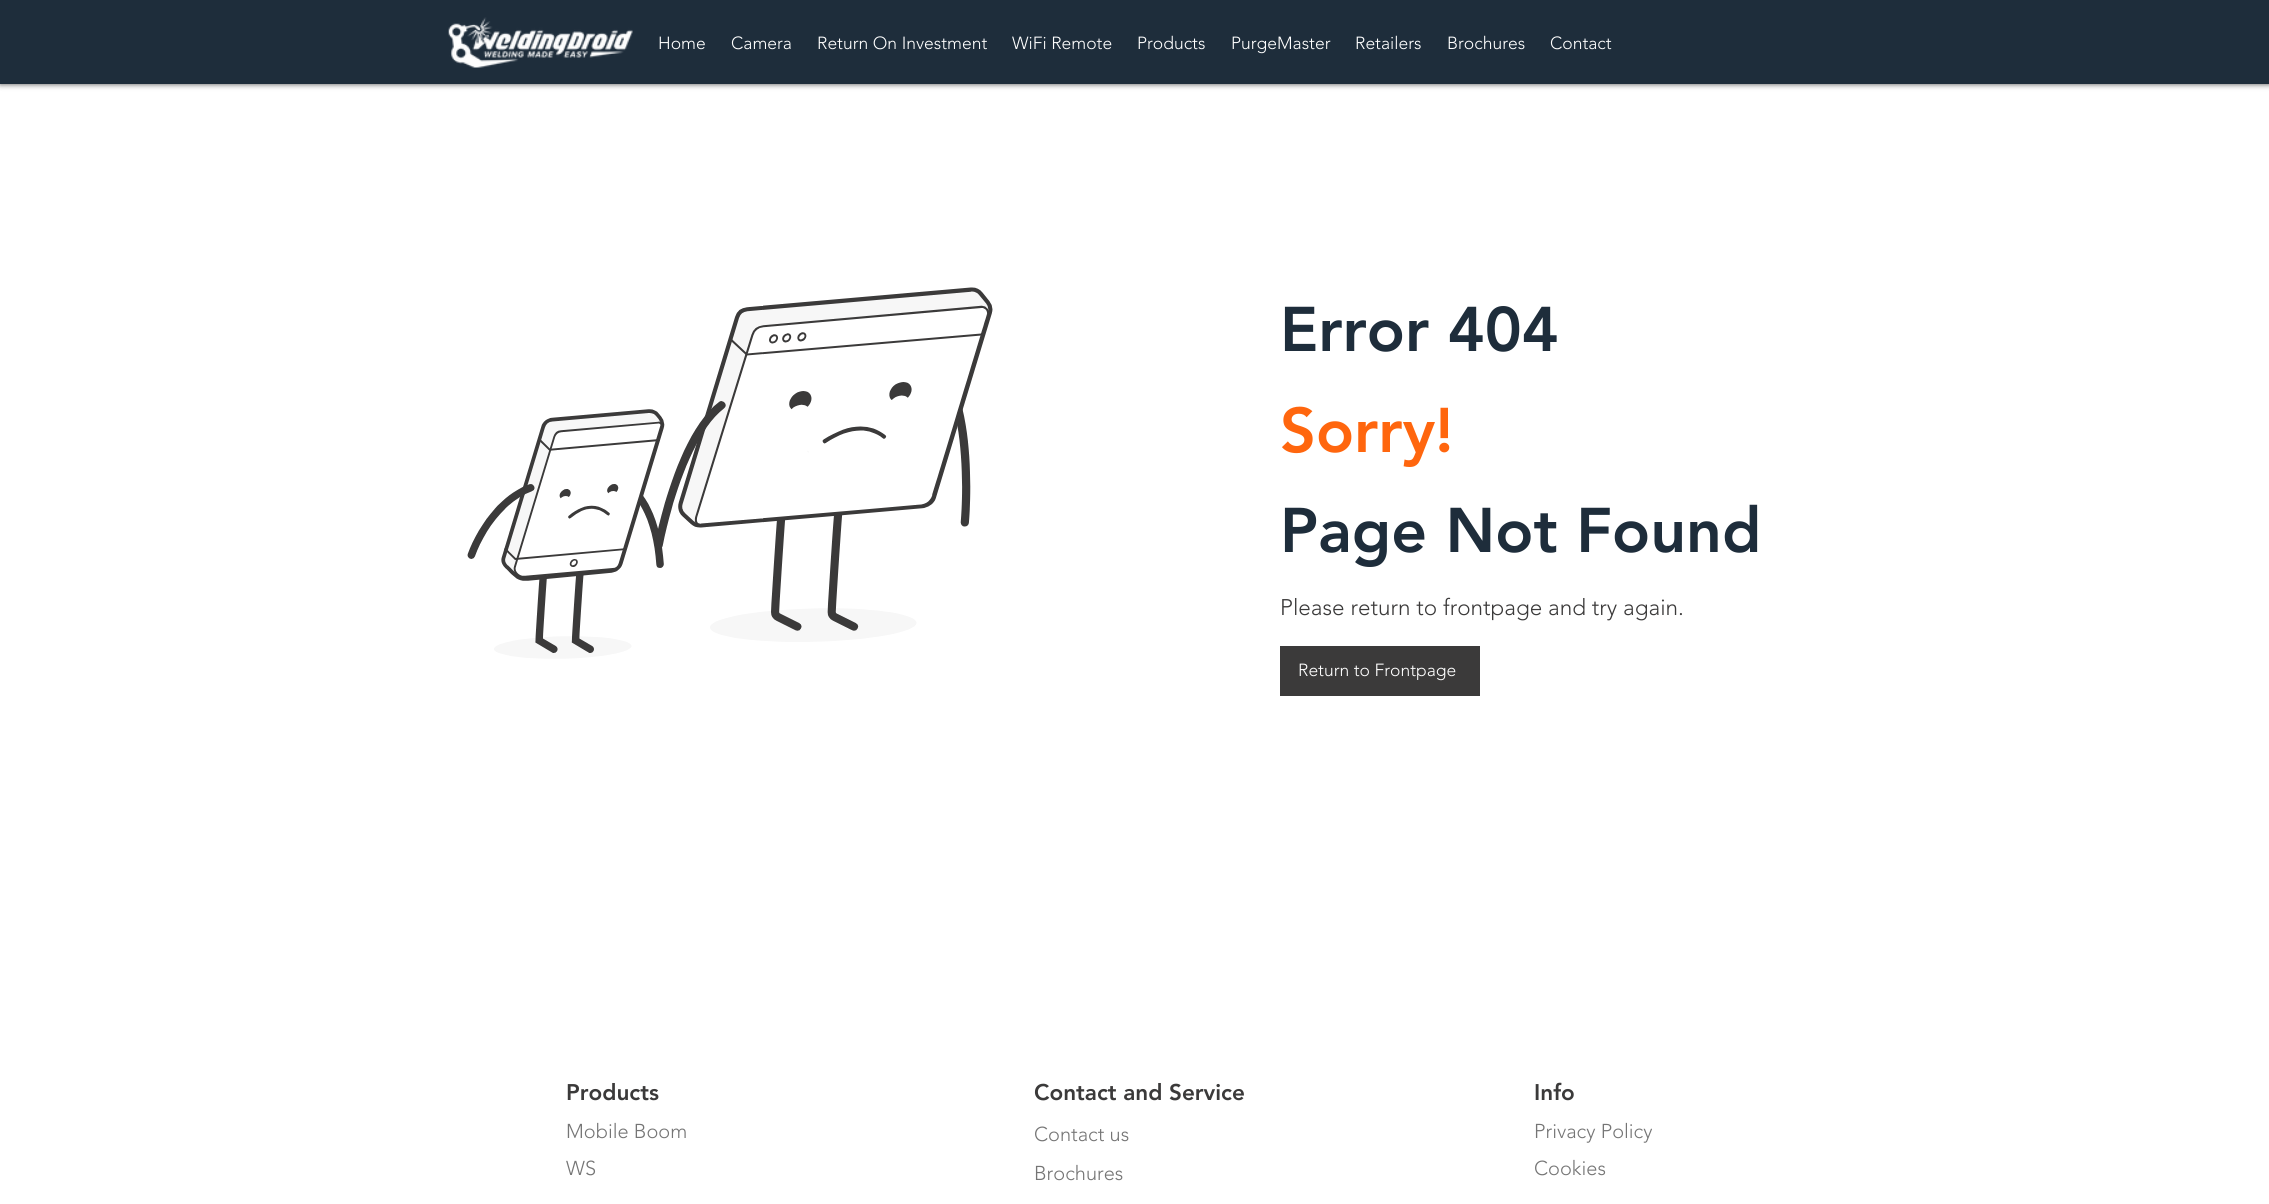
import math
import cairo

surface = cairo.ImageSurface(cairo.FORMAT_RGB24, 2269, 1204)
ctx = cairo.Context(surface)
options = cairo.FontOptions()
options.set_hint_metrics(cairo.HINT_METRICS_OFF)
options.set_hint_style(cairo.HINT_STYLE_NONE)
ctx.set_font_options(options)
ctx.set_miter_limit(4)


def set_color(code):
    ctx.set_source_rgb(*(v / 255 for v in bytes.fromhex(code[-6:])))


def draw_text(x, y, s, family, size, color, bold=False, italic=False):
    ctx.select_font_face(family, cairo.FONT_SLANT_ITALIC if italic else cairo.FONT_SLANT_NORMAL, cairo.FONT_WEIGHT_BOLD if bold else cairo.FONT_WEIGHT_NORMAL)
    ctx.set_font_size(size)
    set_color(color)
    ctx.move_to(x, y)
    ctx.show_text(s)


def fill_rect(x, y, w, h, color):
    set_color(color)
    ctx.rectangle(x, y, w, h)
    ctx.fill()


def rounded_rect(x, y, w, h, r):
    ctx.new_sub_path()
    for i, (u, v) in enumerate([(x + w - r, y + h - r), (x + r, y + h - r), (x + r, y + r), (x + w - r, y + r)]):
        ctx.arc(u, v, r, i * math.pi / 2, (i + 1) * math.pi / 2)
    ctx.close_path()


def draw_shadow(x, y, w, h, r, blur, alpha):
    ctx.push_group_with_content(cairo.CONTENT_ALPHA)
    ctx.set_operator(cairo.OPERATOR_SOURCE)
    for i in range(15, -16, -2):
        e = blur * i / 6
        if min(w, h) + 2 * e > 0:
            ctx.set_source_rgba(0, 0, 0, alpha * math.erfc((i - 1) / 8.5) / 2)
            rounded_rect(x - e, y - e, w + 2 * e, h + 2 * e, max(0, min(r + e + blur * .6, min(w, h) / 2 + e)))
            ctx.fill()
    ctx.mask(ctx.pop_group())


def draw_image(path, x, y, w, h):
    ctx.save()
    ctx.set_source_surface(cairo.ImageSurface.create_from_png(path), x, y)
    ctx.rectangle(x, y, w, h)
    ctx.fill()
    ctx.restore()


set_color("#ffffff")
ctx.paint()
set_color("#000000")
draw_shadow(0, 0, 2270, 84, 0, 3, 0.7)
fill_rect(0, 0, 2269, 84, "#1e2d3b")
draw_image("assets/img1.png", 448, 17, 185, 51)
draw_text(658, 49, "Home", "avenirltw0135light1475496 Light", 17.5, "#ffffff")
draw_text(731, 49, "Camera", "avenirltw0135light1475496 Light", 17.5, "#ffffff")
draw_text(817, 49, "Return On Investment", "avenirltw0135light1475496 Light", 17.5, "#ffffff")
draw_text(1012, 49, "WiFi Remote", "avenirltw0135light1475496 Light", 17.5, "#ffffff")
draw_text(1137, 49, "Products", "avenirltw0135light1475496 Light", 17.5, "#ffffff")
draw_text(1231, 49, "PurgeMaster", "avenirltw0135light1475496 Light", 17.5, "#ffffff")
draw_text(1355, 49, "Retailers", "avenirltw0135light1475496 Light", 17.5, "#ffffff")
draw_text(1447, 49, "Brochures", "avenirltw0135light1475496 Light", 17.5, "#ffffff")
draw_text(1550, 49, "Contact", "avenirltw0135light1475496 Light", 17.5, "#ffffff")
draw_image("assets/img2.png", 467, 287, 526, 372)
draw_text(1280, 351, "Error 404", "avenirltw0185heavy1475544 Black", 62.5, "#1e2d3b")
draw_text(1280, 452, "Sorry!", "avenirltw0185heavy1475544 Black", 62.5, "#ff660e")
draw_text(1280, 552, "Page Not Found", "avenirltw0185heavy1475544 Black", 62.5, "#1e2d3b")
draw_text(1280, 615, "Please return to frontpage and try again.", "avenirltw0135light1475496 Light", 22.5, "#3b3a3a")
fill_rect(1280, 646, 200, 50, "#3b3a3a")
draw_text(1298, 676, "Return to Frontpage", "avenirltw0135light1475496 Light", 17.5, "#ffffff")
draw_text(566, 1100, "Products", "avenirltw0185heavy1475544 Black", 22.5, "#3b3a3a")
draw_text(566, 1138, "Mobile Boom", "avenirltw0135light1475496 Light", 20, "#757575")
draw_text(566, 1175, "WS", "avenirltw0135light1475496 Light", 20, "#757575")
draw_text(1034, 1100, "Contact and Service", "avenirltw0185heavy1475544 Black", 22.5, "#3b3a3a")
draw_text(1034, 1141, "Contact us", "avenirltw0135light1475496 Light", 20, "#757575")
draw_text(1034, 1180, "Brochures", "avenirltw0135light1475496 Light", 20, "#757575")
draw_text(1534, 1100, "Info", "avenirltw0185heavy1475544 Black", 22.5, "#3b3a3a")
draw_text(1534, 1138, "Privacy Policy", "avenirltw0135light1475496 Light", 20, "#757575")
draw_text(1534, 1175, "Cookies", "avenirltw0135light1475496 Light", 20, "#757575")
surface.write_to_png("output.png")
